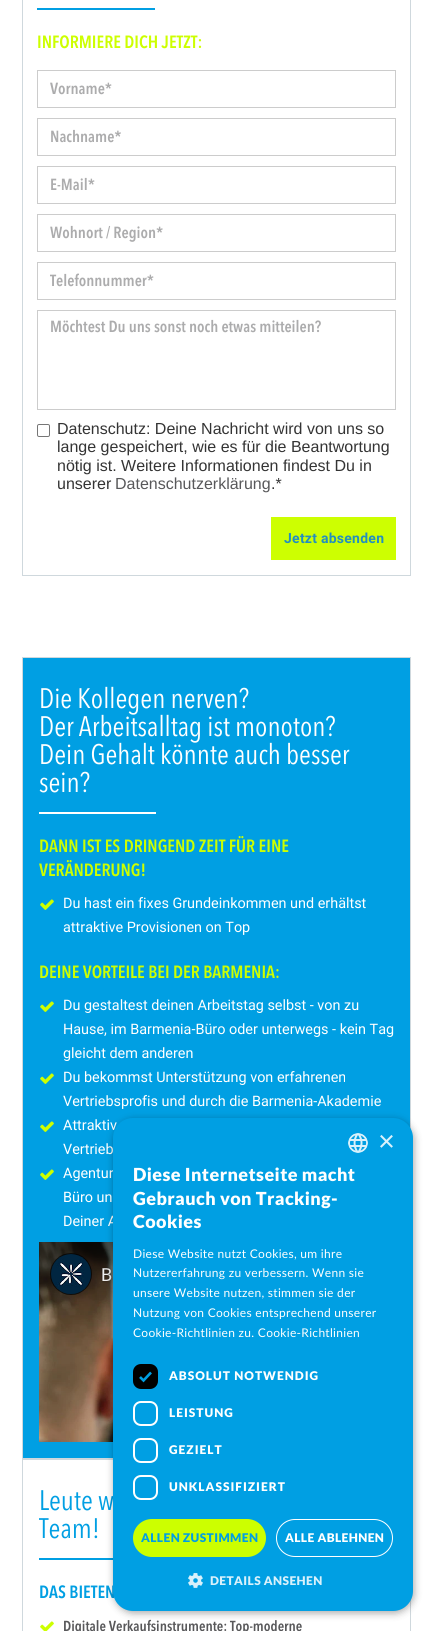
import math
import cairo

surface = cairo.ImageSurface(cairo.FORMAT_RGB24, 433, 1631)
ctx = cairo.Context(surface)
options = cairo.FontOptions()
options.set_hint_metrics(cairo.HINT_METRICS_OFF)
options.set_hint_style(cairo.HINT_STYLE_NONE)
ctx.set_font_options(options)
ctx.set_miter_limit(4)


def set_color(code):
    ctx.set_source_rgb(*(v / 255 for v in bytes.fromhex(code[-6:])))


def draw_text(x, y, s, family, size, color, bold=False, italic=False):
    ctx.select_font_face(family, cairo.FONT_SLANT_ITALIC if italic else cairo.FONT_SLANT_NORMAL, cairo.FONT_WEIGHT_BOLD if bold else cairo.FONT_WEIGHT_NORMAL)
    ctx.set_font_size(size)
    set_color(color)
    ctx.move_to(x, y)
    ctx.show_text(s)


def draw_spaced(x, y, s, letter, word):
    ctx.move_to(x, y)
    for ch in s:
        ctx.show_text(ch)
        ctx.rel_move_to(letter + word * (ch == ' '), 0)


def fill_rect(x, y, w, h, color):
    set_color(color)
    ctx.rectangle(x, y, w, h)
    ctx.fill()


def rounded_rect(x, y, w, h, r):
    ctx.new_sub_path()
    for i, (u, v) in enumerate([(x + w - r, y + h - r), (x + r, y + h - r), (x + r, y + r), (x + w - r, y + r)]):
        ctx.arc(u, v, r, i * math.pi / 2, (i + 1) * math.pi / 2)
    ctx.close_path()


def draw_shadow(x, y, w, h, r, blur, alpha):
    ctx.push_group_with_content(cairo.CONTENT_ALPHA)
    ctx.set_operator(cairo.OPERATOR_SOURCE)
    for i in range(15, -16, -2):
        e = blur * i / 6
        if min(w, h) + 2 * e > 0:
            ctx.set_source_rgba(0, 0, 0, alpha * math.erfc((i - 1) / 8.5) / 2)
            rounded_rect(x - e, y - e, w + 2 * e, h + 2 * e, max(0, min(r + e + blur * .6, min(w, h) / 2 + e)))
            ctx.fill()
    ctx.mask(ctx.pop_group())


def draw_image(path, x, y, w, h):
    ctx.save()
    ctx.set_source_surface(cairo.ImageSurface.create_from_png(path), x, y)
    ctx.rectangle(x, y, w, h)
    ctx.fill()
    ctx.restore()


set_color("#ffffff")
ctx.paint()
ctx.rectangle(22.5, -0.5, 388, 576)
set_color("#cfd8dd")
ctx.set_line_width(1)
ctx.stroke()
fill_rect(37, 8, 118, 2, "#019fe3")
draw_text(37, 48, "INFORMIERE DICH JETZT:", "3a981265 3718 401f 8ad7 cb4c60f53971", 17.6, "#cdff00", bold=True)
ctx.rectangle(37.5, 70.5, 358, 37)
set_color("#cccccc")
ctx.stroke()
draw_text(50, 94, "Vorname*", "3a981265 3718 401f 8ad7 cb4c60f53971", 16, "#acacad", bold=True)
ctx.rectangle(37.5, 118.5, 358, 37)
set_color("#cccccc")
ctx.stroke()
draw_text(50, 142, "Nachname*", "3a981265 3718 401f 8ad7 cb4c60f53971", 16, "#acacad", bold=True)
ctx.rectangle(37.5, 166.5, 358, 37)
set_color("#cccccc")
ctx.stroke()
draw_text(50, 190, "E-Mail*", "3a981265 3718 401f 8ad7 cb4c60f53971", 16, "#acacad", bold=True)
ctx.rectangle(37.5, 214.5, 358, 37)
set_color("#cccccc")
ctx.stroke()
draw_text(50, 238, "Wohnort / Region*", "3a981265 3718 401f 8ad7 cb4c60f53971", 16, "#acacad", bold=True)
ctx.rectangle(37.5, 262.5, 358, 37)
set_color("#cccccc")
ctx.stroke()
ctx.save()
ctx.rectangle(50, 271, 333, 19)
ctx.clip()
draw_text(50, 286, "Telefonnummer*", "3a981265 3718 401f 8ad7 cb4c60f53971", 16, "#acacad", bold=True)
ctx.restore()
ctx.rectangle(37.5, 310.5, 358, 99)
ctx.stroke()
draw_text(50, 332, "Möchtest Du uns sonst noch etwas mitteilen?", "3a981265 3718 401f 8ad7 cb4c60f53971", 16, "#acacad", bold=True)
rounded_rect(37.5, 424.5, 12, 12, 1.5)
set_color("#767676")
ctx.stroke()
draw_text(57, 434, "Datenschutz: Deine Nachricht wird von uns so", "Liberation Sans", 16, "#343434")
draw_text(57, 452, "lange gespeichert, wie es für die Beantwortung", "Liberation Sans", 16, "#343434")
draw_text(57, 471, "nötig ist. Weitere Informationen findest Du in", "Liberation Sans", 16, "#343434")
draw_text(57, 489, "unserer", "Liberation Sans", 16, "#343434")
draw_text(115, 489, "Datenschutzerklärung", "Liberation Sans", 16, "#58585a")
draw_text(271, 489, ".*", "Liberation Sans", 16, "#343434")
fill_rect(271, 517, 125, 43, "#cdff01")
ctx.select_font_face("Roboto", cairo.FONT_SLANT_NORMAL, cairo.FONT_WEIGHT_BOLD)
ctx.set_font_size(14)
set_color("#238fbf")
draw_spaced(284, 543, "Jetzt absenden", 0.25, 0)
set_color("#009fe3")
ctx.rectangle(22.5, 657.5, 388, 801)
ctx.fill_preserve()
set_color("#cfd8dd")
ctx.stroke()
draw_text(39, 708, "Die Kollegen nerven?", "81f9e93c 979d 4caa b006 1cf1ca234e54", 28, "#ffffff")
draw_text(39, 736, "Der Arbeitsalltag ist monoton?", "81f9e93c 979d 4caa b006 1cf1ca234e54", 28, "#ffffff")
draw_text(39, 764, "Dein Gehalt könnte auch besser", "81f9e93c 979d 4caa b006 1cf1ca234e54", 28, "#ffffff")
draw_text(39, 792, "sein?", "81f9e93c 979d 4caa b006 1cf1ca234e54", 28, "#ffffff")
fill_rect(39, 812, 117, 2, "#ffffff")
draw_text(39, 852, "DANN IST ES DRINGEND ZEIT FÜR EINE", "3a981265 3718 401f 8ad7 cb4c60f53971", 17.6, "#cdff00", bold=True)
draw_text(39, 876, "VERÄNDERUNG!", "3a981265 3718 401f 8ad7 cb4c60f53971", 17.6, "#cdff00", bold=True)
draw_image("assets/img1.png", 40, 899, 14, 11)
draw_text(63, 908, "Du hast ein fixes Grundeinkommen und erhältst", "Roboto", 14.4, "#ffffff")
draw_text(63, 932, "attraktive Provisionen on Top", "Roboto", 14.4, "#ffffff")
draw_text(39, 978, "DEINE VORTEILE BEI DER BARMENIA:", "3a981265 3718 401f 8ad7 cb4c60f53971", 17.6, "#cdff00", bold=True)
draw_image("assets/img1.png", 40, 1001, 14, 11)
draw_text(63, 1010, "Du gestaltest deinen Arbeitstag selbst - von zu", "Roboto", 14.4, "#ffffff")
draw_text(63, 1034, "Hause, im Barmenia-Büro oder unterwegs - kein Tag", "Roboto", 14.4, "#ffffff")
draw_text(63, 1058, "gleicht dem anderen", "Roboto", 14.4, "#ffffff")
draw_image("assets/img1.png", 40, 1073, 14, 11)
draw_text(63, 1082, "Du bekommst Unterstützung von erfahrenen", "Roboto", 14.4, "#ffffff")
draw_text(63, 1106, "Vertriebsprofis und durch die Barmenia-Akademie", "Roboto", 14.4, "#ffffff")
draw_image("assets/img1.png", 40, 1121, 14, 11)
draw_text(63, 1130, "Attraktiv", "Roboto", 14.4, "#ffffff")
draw_text(63, 1154, "Vertrieb", "Roboto", 14.4, "#ffffff")
draw_image("assets/img1.png", 40, 1169, 14, 11)
draw_text(63, 1178, "Agentur", "Roboto", 14.4, "#ffffff")
draw_text(63, 1202, "Büro un", "Roboto", 14.4, "#ffffff")
draw_text(63, 1226, "Deiner A", "Roboto", 14.4, "#ffffff")
draw_image("assets/img2.png", 39, 1242, 74, 200)
ctx.rectangle(22.5, 1459.5, 388, 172)
set_color("#cfd8dd")
ctx.stroke()
draw_text(39, 1510, "Leute w", "81f9e93c 979d 4caa b006 1cf1ca234e54", 28, "#009fe3")
draw_text(39, 1538, "Team!", "81f9e93c 979d 4caa b006 1cf1ca234e54", 28, "#009fe3")
fill_rect(39, 1558, 74, 2, "#009fe3")
draw_text(39, 1598, "DAS BIETEN", "3a981265 3718 401f 8ad7 cb4c60f53971", 17.6, "#009fe3", bold=True)
draw_image("assets/img3.png", 40, 1621, 14, 10)
draw_text(63, 1631, "Digitale Verkaufsinstrumente: Top-moderne", "3a981265 3718 401f 8ad7 cb4c60f53971", 14.4, "#58585a", bold=True)
set_color("#000000")
draw_shadow(114, 1120, 300, 493, 20, 4, 0.35)
set_color("#009fe3")
rounded_rect(113, 1118, 300, 493, 20)
ctx.fill()
draw_image("assets/img4.png", 348, 1133, 20, 20)
draw_text(378, 1151, "×", "Liberation Sans", 29, "#d9f1fb")
ctx.select_font_face("Lato Black")
ctx.set_font_size(18)
set_color("#ffffff")
draw_spaced(133, 1181, "Diese Internetseite macht", 0.4, 0)
draw_spaced(133, 1205, "Gebrauch von Tracking-", 0.4, 0)
draw_spaced(133, 1228, "Cookies", 0.4, 0)
ctx.select_font_face("Lato")
ctx.set_font_size(12)
draw_spaced(133, 1258, "Diese Website nutzt Cookies, um ihre", 0.3, 0)
draw_spaced(133, 1277, "Nutzererfahrung zu verbessern. Wenn sie", 0.3, 0)
draw_spaced(133, 1297, "unsere Website nutzen, stimmen sie der", 0.3, 0)
draw_spaced(133, 1317, "Nutzung von Cookies entsprechend unserer", 0.3, 0)
draw_spaced(133, 1337, "Cookie-Richtlinien zu. Cookie-Richtlinien", 0.3, 0)
set_color("#000000")
rounded_rect(133, 1364, 25, 25, 8)
ctx.fill()
ctx.new_path()
ctx.move_to(140, 1377)
ctx.line_to(143.5, 1380.5)
ctx.line_to(151, 1372.5)
set_color("#009fe3")
ctx.set_line_width(2.6)
ctx.stroke()
ctx.select_font_face("Lato Black")
set_color("#ffffff")
draw_spaced(169, 1380, "ABSOLUT NOTWENDIG", 1, 0)
rounded_rect(134, 1402, 23, 23, 7)
ctx.set_line_width(2)
ctx.stroke()
draw_spaced(169, 1417, "LEISTUNG", 1, 0)
rounded_rect(134, 1439, 23, 23, 7)
ctx.stroke()
draw_spaced(169, 1454, "GEZIELT", 1, 0)
rounded_rect(134, 1476, 23, 23, 7)
ctx.stroke()
draw_spaced(169, 1491, "UNKLASSIFIZIERT", 1, 0)
set_color("#ccff00")
rounded_rect(133, 1519, 133, 38, 19)
ctx.fill()
set_color("#009fe3")
draw_spaced(141, 1542, "ALLEN ZUSTIMMEN", 0.4, 0)
rounded_rect(276.5, 1519.5, 116, 37, 18.5)
set_color("#ffffff")
ctx.set_line_width(1)
ctx.stroke()
draw_spaced(285, 1542, "ALLE ABLEHNEN", 0.4, 0)
draw_image("assets/img5.png", 188, 1573, 15, 15)
set_color("#d9f1fb")
draw_spaced(210, 1585, "DETAILS ANSEHEN", 0.4, 0)
surface.write_to_png("output.png")
